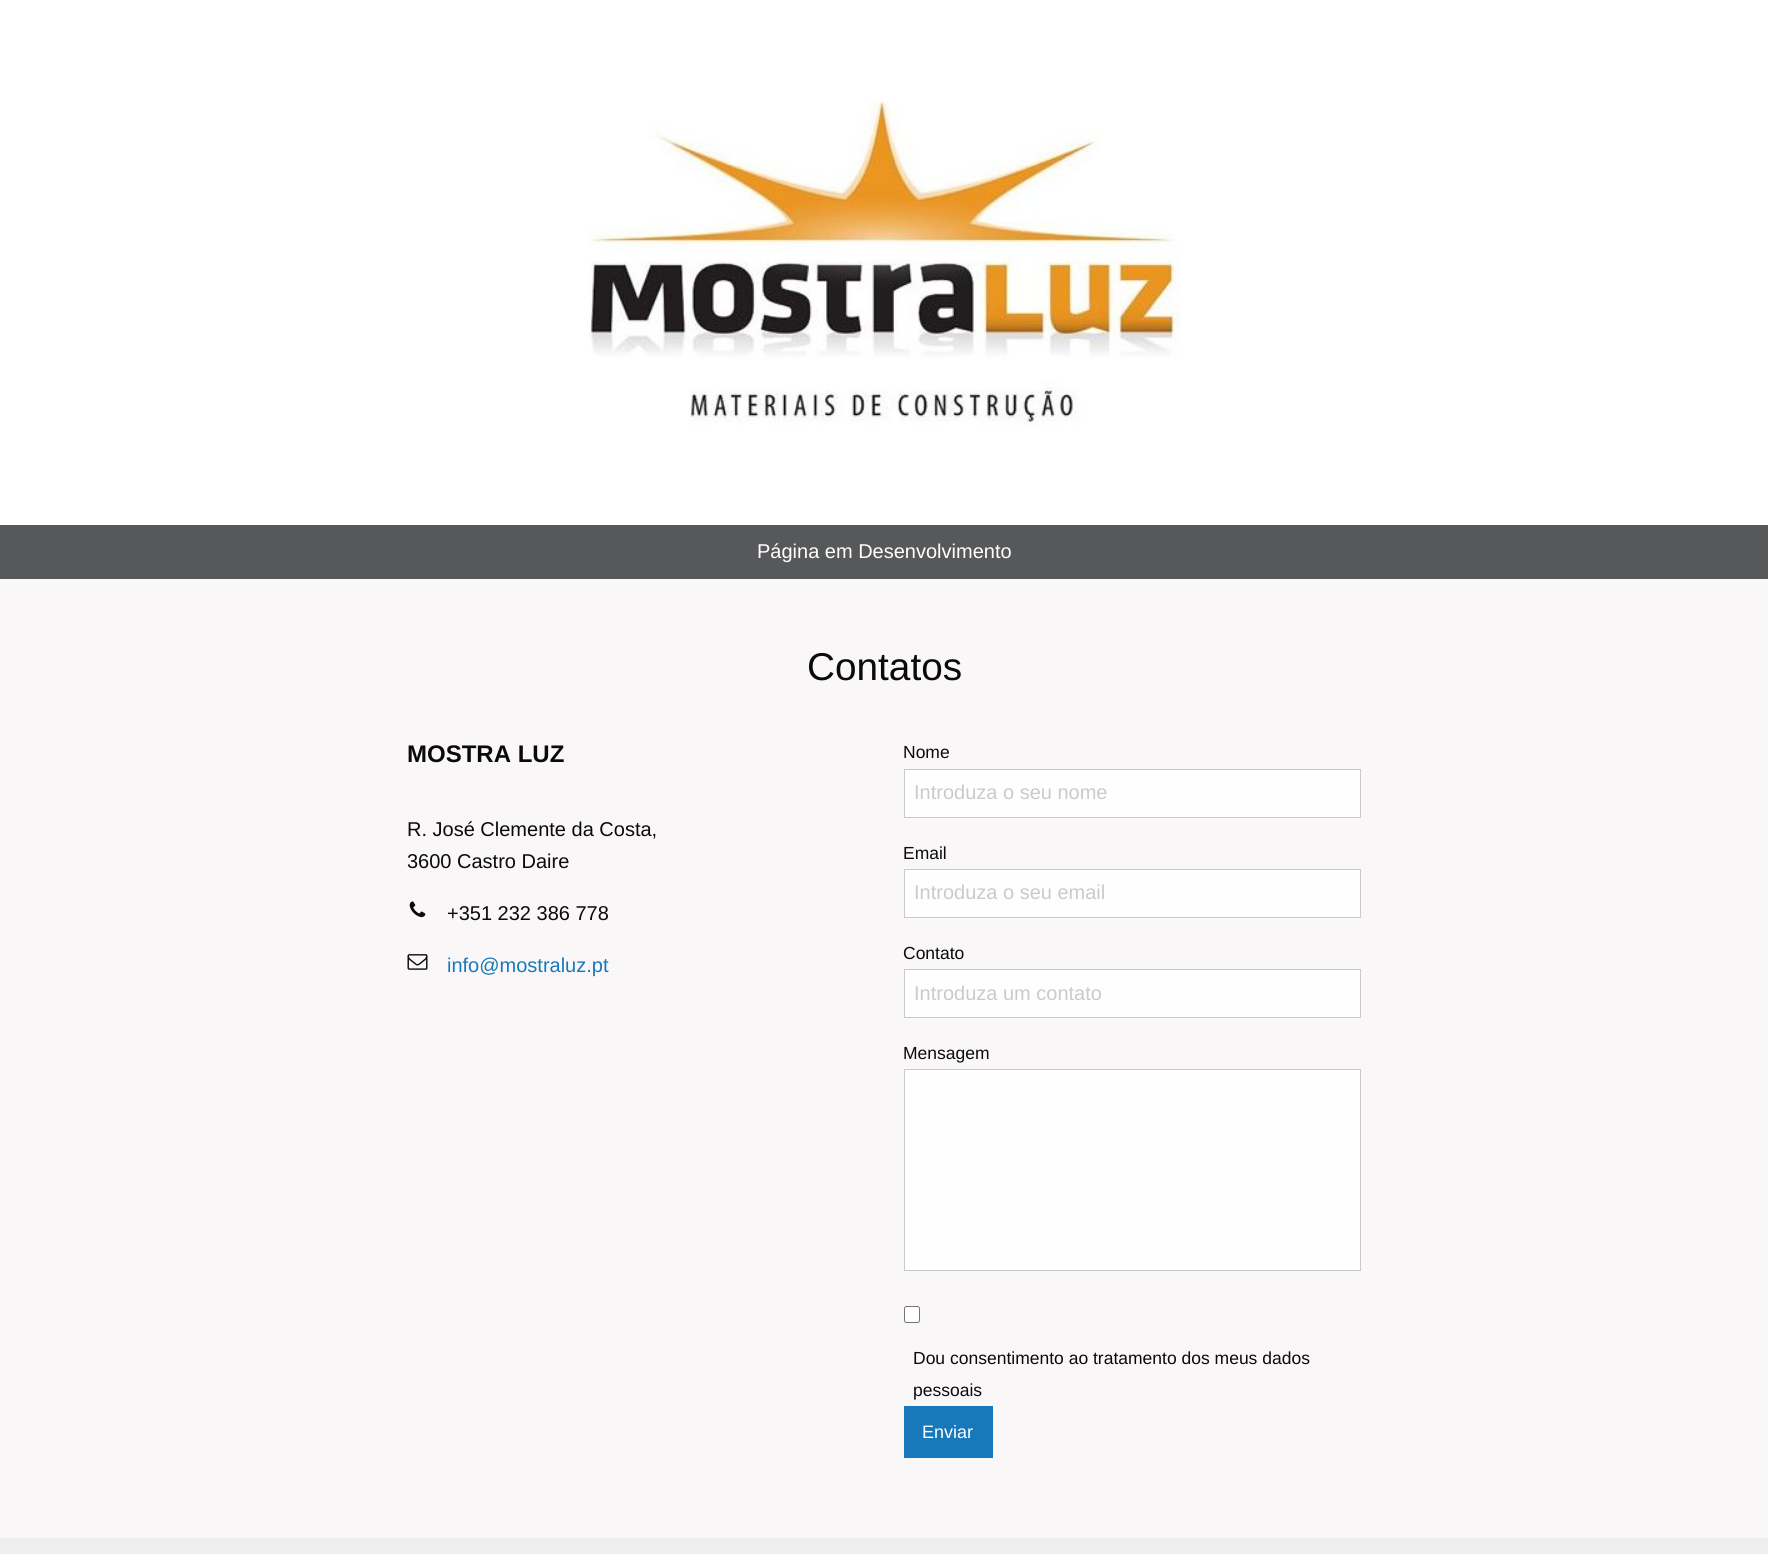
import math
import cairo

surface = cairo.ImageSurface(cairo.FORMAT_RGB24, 1768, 1554)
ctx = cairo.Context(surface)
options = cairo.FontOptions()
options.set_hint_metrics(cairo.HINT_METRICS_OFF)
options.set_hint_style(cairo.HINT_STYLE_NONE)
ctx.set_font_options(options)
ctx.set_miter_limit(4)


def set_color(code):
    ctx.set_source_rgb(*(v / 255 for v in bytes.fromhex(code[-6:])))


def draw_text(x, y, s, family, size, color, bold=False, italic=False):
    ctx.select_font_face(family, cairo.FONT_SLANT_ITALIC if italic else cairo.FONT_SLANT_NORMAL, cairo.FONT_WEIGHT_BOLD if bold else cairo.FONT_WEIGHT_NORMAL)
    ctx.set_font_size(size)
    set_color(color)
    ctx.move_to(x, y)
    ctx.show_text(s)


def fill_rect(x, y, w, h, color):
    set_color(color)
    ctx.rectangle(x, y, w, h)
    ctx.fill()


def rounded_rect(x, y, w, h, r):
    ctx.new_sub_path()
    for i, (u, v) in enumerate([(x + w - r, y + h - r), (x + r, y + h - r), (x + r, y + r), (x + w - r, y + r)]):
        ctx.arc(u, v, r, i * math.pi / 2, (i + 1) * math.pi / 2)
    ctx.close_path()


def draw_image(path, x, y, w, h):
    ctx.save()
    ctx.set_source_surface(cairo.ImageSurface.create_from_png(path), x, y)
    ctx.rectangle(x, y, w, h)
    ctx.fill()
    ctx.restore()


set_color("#ffffff")
ctx.paint()
draw_image("assets/img1.png", 588, 100, 592, 328)
fill_rect(0, 525, 1768, 54, "#57585a")
draw_text(757, 558, "Página em Desenvolvimento", "Liberation Sans", 20, "#ffffff")
fill_rect(0, 579, 1768, 959, "#faf7f8")
draw_text(807, 680, "Contatos", "Liberation Sans", 38.75, "#0a0a0a")
draw_text(407, 762, "MOSTRA LUZ", "Liberation Sans", 24, "#0a0a0a", bold=True)
draw_text(407, 836, "R. José Clemente da Costa,", "Liberation Sans", 20, "#0a0a0a")
draw_text(407, 868, "3600 Castro Daire", "Liberation Sans", 20, "#0a0a0a")
draw_image("assets/img2.png", 409, 901, 17, 17)
draw_text(447, 920, "+351 232 386 778", "Liberation Sans", 20, "#0a0a0a")
draw_image("assets/img3.png", 407, 954, 21, 16)
draw_text(447, 972, "info@mostraluz.pt", "Liberation Sans", 20, "#1779ba")
draw_text(903, 758, "Nome", "Liberation Sans", 17.5, "#0a0a0a")
set_color("#fefefe")
ctx.rectangle(904.5, 769.5, 456, 48)
ctx.fill_preserve()
set_color("#cacaca")
ctx.set_line_width(1)
ctx.stroke()
draw_text(914, 799, "Introduza o seu nome", "Liberation Sans", 20, "#cacaca")
draw_text(903, 859, "Email", "Liberation Sans", 17.5, "#0a0a0a")
set_color("#fefefe")
ctx.rectangle(904.5, 869.5, 456, 48)
ctx.fill_preserve()
set_color("#cacaca")
ctx.stroke()
draw_text(914, 899, "Introduza o seu email", "Liberation Sans", 20, "#cacaca")
draw_text(903, 959, "Contato", "Liberation Sans", 17.5, "#0a0a0a")
set_color("#fefefe")
ctx.rectangle(904.5, 969.5, 456, 48)
ctx.fill_preserve()
set_color("#cacaca")
ctx.stroke()
draw_text(914, 1000, "Introduza um contato", "Liberation Sans", 20, "#cacaca")
draw_text(903, 1059, "Mensagem", "Liberation Sans", 17.5, "#0a0a0a")
set_color("#fefefe")
ctx.rectangle(904.5, 1069.5, 456, 201)
ctx.fill_preserve()
set_color("#cacaca")
ctx.stroke()
set_color("#ffffff")
rounded_rect(904.5, 1306.5, 15, 16, 2)
ctx.fill_preserve()
set_color("#767676")
ctx.stroke()
draw_text(913, 1364, "Dou consentimento ao tratamento dos meus dados", "Liberation Sans", 17.5, "#0a0a0a")
draw_text(913, 1396, "pessoais", "Liberation Sans", 17.5, "#0a0a0a")
fill_rect(904, 1406, 89, 52, "#1779ba")
draw_text(922, 1438, "Enviar", "Liberation Sans", 18, "#ffffff")
fill_rect(0, 1538, 1768, 16, "#efefef")
surface.write_to_png("output.png")
